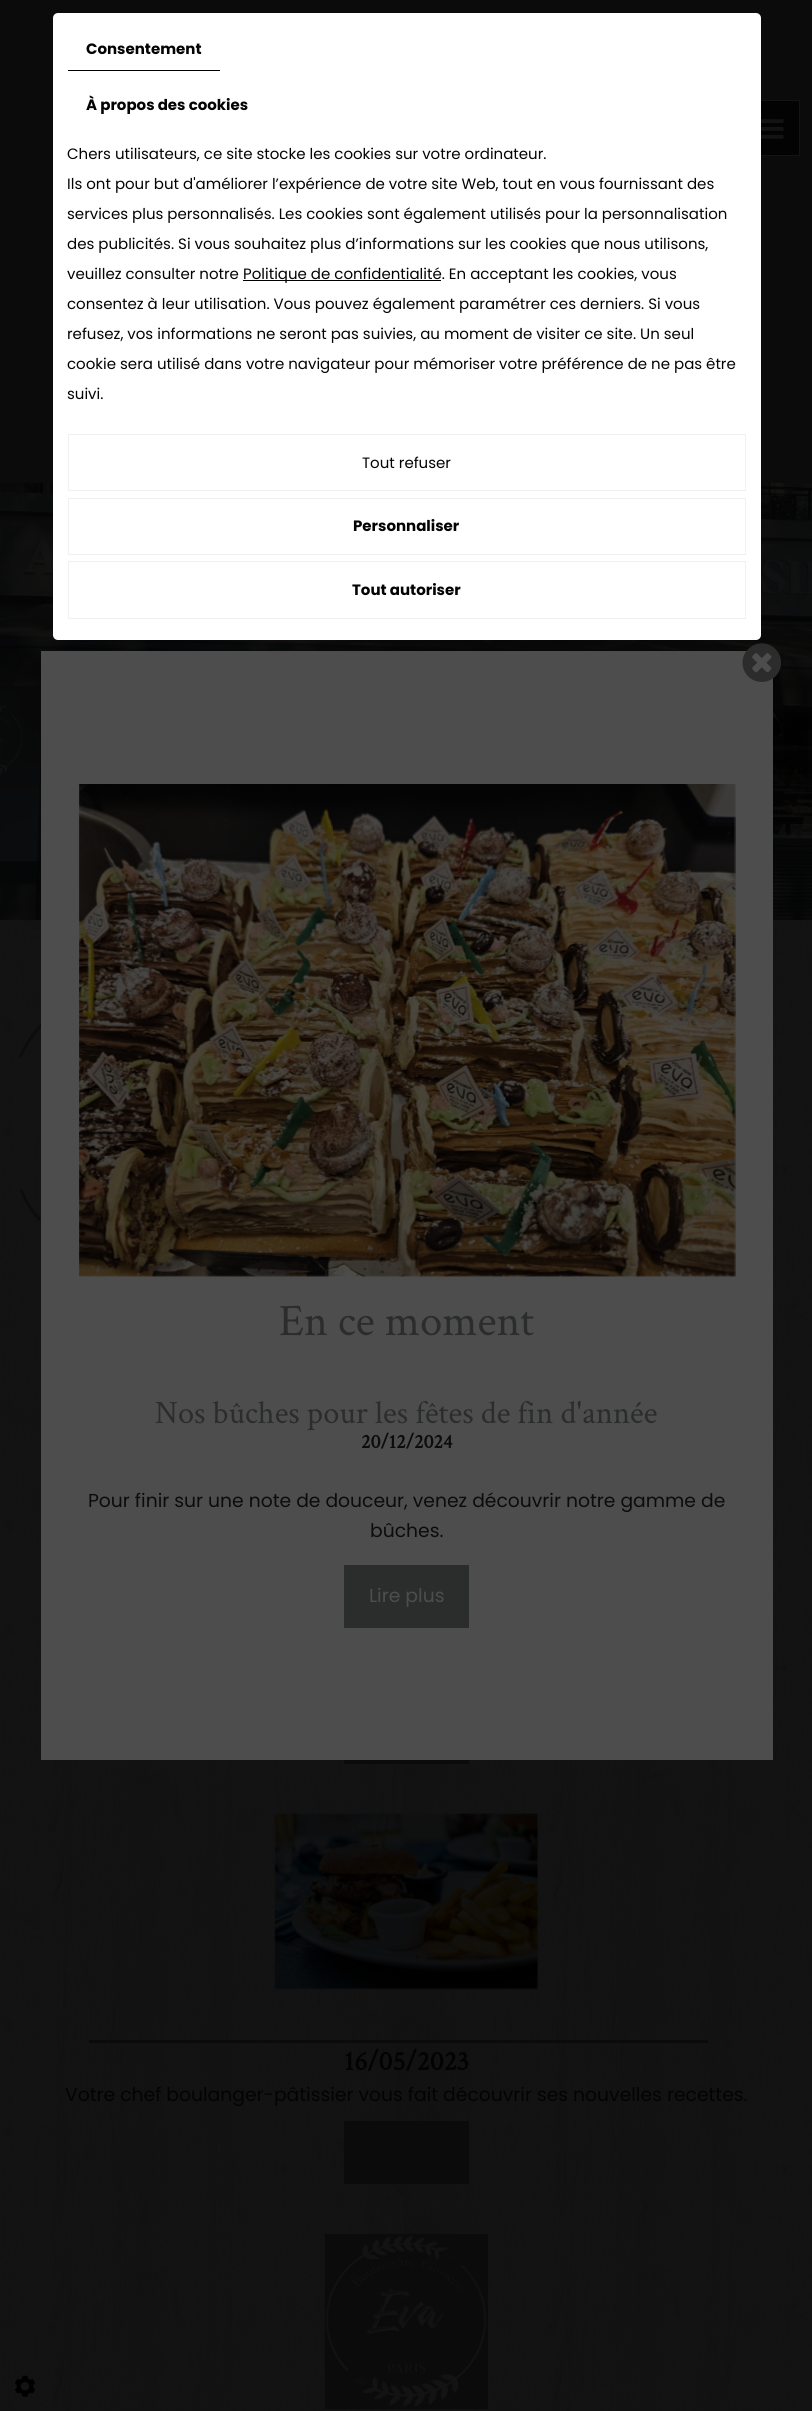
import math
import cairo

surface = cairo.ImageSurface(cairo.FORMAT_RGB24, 812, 2411)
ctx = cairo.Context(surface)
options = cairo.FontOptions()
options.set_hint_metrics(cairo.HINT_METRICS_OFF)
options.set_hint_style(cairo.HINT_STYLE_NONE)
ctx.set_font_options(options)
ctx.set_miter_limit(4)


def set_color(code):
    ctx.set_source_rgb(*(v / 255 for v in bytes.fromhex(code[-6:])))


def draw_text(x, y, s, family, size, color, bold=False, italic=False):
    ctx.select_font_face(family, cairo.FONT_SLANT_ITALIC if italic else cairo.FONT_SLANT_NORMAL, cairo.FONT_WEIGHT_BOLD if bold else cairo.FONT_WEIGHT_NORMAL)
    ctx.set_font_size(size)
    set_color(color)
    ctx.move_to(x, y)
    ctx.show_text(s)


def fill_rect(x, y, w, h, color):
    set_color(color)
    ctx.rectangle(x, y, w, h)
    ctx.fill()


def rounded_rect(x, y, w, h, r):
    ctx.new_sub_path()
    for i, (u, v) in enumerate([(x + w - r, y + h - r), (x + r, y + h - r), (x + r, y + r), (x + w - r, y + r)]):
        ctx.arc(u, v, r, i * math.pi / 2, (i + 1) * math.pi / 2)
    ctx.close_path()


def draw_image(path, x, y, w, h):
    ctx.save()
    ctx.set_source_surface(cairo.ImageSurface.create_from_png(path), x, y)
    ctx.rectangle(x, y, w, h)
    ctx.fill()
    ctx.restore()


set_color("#131313")
ctx.paint()
draw_image("assets/img1.png", 0, 920, 812, 1491)
fill_rect(0, 0, 812, 483, "#0b0b0b")
fill_rect(761, 101, 38, 54, "#030303")
ctx.rectangle(744.5, 100.5, 55, 55)
set_color("#131313")
ctx.set_line_width(1)
ctx.stroke()
draw_image("assets/img3.png", 0, 482, 812, 438)
set_color("#ffffff")
rounded_rect(53, 13, 708, 627, 5)
ctx.fill()
fill_rect(68, 70, 152, 1, "#000000")
draw_text(86, 54, "Consentement", "Poppins", 15, "#030303", bold=True)
draw_text(86, 110, "À propos des cookies", "Poppins", 15, "#030303", bold=True)
draw_text(67, 159, "Chers utilisateurs, ce site stocke les cookies sur votre ordinateur.", "Poppins", 15, "#030303")
draw_text(67, 189, "Ils ont pour but d'améliorer l’expérience de votre site Web, tout en vous fournissant des", "Poppins", 15, "#030303")
draw_text(67, 219, "services plus personnalisés. Les cookies sont également utilisés pour la personnalisation", "Poppins", 15, "#030303")
draw_text(67, 249, "des publicités. Si vous souhaitez plus d’informations sur les cookies que nous utilisons,", "Poppins", 15, "#030303")
draw_text(67, 279, "veuillez consulter notre", "Poppins", 15, "#030303")
fill_rect(243, 280, 198, 1, "#000000")
draw_text(243, 279, "Politique de confidentialité. En acceptant les cookies, vous", "Poppins", 15, "#030303")
draw_text(67, 309, "consentez à leur utilisation. Vous pouvez également paramétrer ces derniers. Si vous", "Poppins", 15, "#030303")
draw_text(67, 339, "refusez, vos informations ne seront pas suivies, au moment de visiter ce site. Un seul", "Poppins", 15, "#030303")
draw_text(67, 369, "cookie sera utilisé dans votre navigateur pour mémoriser votre préférence de ne pas être", "Poppins", 15, "#030303")
draw_text(67, 399, "suivi.", "Poppins", 15, "#030303")
ctx.rectangle(68.5, 434.5, 677, 56)
set_color("#f0f0f0")
ctx.stroke()
draw_text(362, 468, "Tout refuser", "Poppins", 15, "#030303")
ctx.rectangle(68.5, 498.5, 677, 56)
set_color("#f0f0f0")
ctx.stroke()
draw_text(353, 531, "Personnaliser", "Poppins", 15, "#030303", bold=True)
ctx.rectangle(68.5, 561.5, 677, 57)
set_color("#f0f0f0")
ctx.stroke()
draw_text(352, 595, "Tout autoriser", "Poppins", 15, "#030303", bold=True)
draw_image("assets/img2.png", 761, 119, 23, 20)
draw_image("assets/img4.png", 18, 1023, 23, 199)
fill_rect(41, 651, 732, 1109, "#4d4d4d")
draw_image("assets/img5.png", 742, 643, 40, 39)
draw_image("assets/img6.png", 79, 784, 657, 493)
draw_text(279, 1335, "En ce moment", "Crimson Text", 45, "#2b2c2c")
draw_text(155, 1423, "Nos bûches pour les fêtes de fin d'année", "Crimson Text", 32.5, "#2b2c2c")
draw_text(361, 1448, "20/12/2024", "Crimson Text", 20, "#0c0c0c", bold=True)
draw_text(88, 1507, "Pour finir sur une note de douceur, venez découvrir notre gamme de", "Poppins", 18.75, "#0c0c0c")
draw_text(370, 1537, "bûches.", "Poppins", 18.75, "#0c0c0c")
fill_rect(344, 1565, 125, 63, "#2b2c2c")
draw_text(369, 1602, "Lire plus", "Poppins", 18.75, "#4d4d4d")
fill_rect(344, 1760, 125, 4, "#0b0b0b")
draw_image("assets/img7.png", 274, 1813, 264, 177)
fill_rect(89, 2040, 619, 3, "#0b0b0b")
draw_text(344, 2070, "16/05/2023", "Crimson Text", 27.5, "#030303", bold=True)
draw_text(65, 2101, "Votre chef boulanger-pâtissier vous fait découvrir ses nouvelles recettes.", "Poppins", 18.75, "#030303")
fill_rect(344, 2121, 125, 63, "#0b0b0b")
fill_rect(325, 2234, 163, 175, "#0b0b0b")
draw_image("assets/img8.png", 324, 2233, 164, 176)
draw_image("assets/img9.png", 14, 2375, 22, 22)
surface.write_to_png("output.png")
